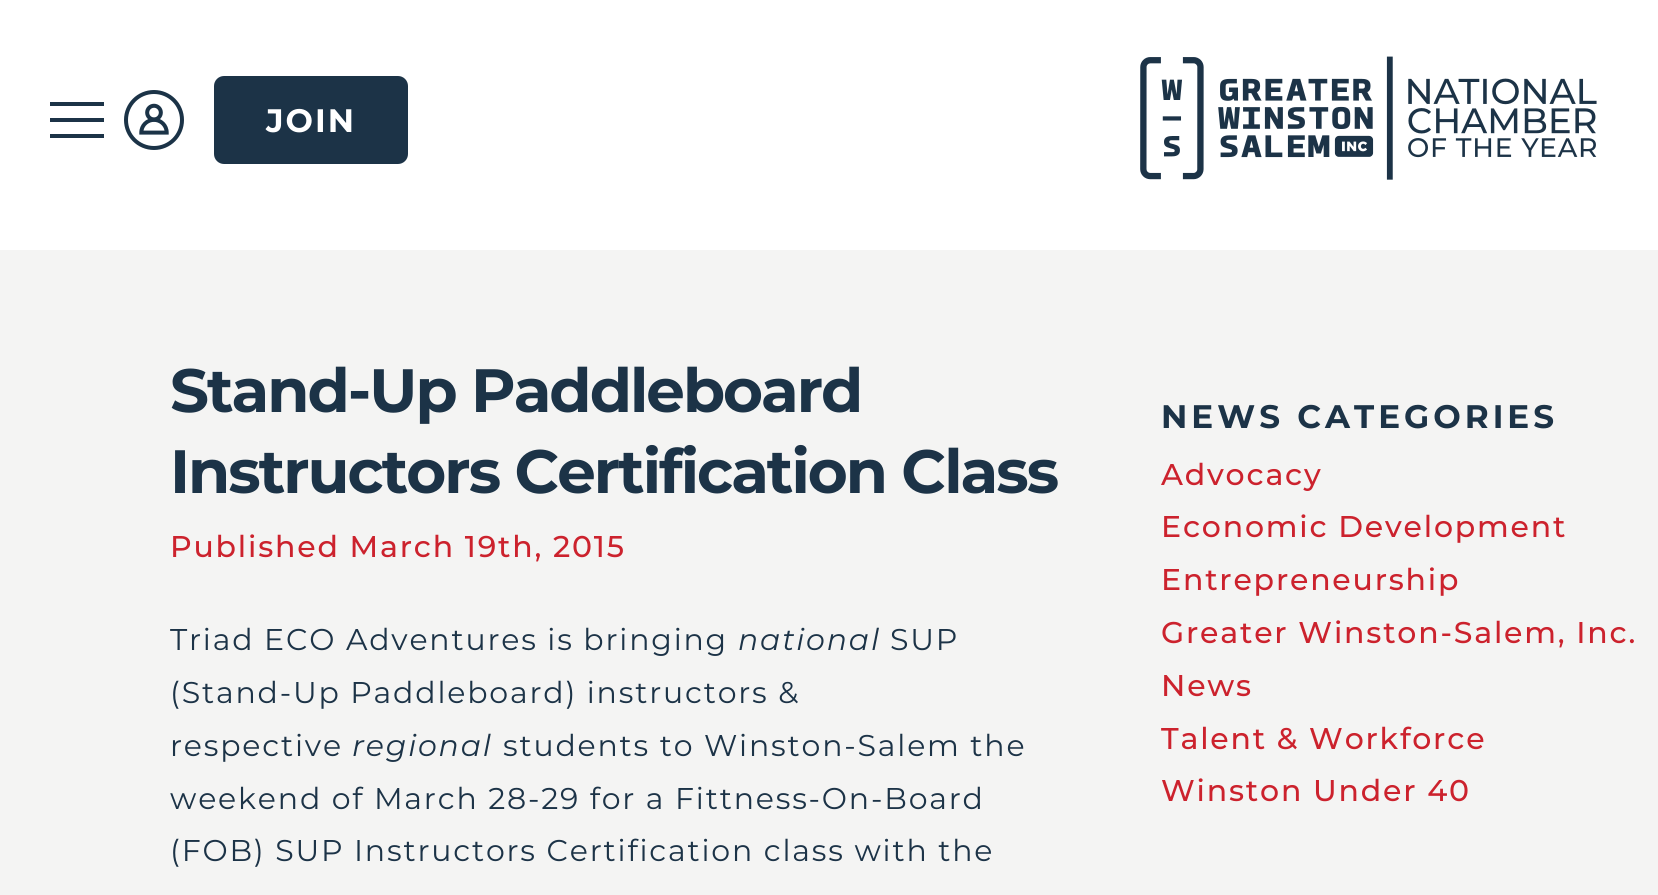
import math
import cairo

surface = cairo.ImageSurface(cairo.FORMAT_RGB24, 1658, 895)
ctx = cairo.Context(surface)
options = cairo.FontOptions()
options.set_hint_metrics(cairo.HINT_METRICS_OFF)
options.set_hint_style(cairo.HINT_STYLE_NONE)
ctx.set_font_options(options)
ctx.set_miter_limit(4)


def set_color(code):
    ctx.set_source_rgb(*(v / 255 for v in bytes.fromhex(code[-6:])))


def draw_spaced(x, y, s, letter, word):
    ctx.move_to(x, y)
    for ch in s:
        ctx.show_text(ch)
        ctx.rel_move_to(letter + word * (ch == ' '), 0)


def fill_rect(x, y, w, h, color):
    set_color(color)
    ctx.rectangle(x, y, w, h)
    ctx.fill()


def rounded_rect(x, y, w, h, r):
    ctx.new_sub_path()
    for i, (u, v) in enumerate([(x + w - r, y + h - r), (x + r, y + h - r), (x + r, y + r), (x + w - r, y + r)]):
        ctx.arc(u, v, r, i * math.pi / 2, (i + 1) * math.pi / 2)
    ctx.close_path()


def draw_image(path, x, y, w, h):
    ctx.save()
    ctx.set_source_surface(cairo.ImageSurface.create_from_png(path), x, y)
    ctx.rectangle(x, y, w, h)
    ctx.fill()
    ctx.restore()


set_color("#ffffff")
ctx.paint()
fill_rect(50, 118, 54, 4, "#1c3347")
fill_rect(50, 102, 54, 4, "#1c3347")
fill_rect(50, 134, 54, 4, "#1c3347")
draw_image("assets/img1.png", 124, 90, 60, 60)
rounded_rect(215, 77, 192, 86, 9)
ctx.fill_preserve()
ctx.stroke()
ctx.select_font_face("Montserrat", cairo.FONT_SLANT_NORMAL, cairo.FONT_WEIGHT_BOLD)
ctx.set_font_size(32.5)
set_color("#ffffff")
draw_spaced(266, 132, "JOIN", 2, 0)
draw_image("assets/img2.png", 1140, 56, 457, 124)
fill_rect(0, 250, 1658, 645, "#f4f4f3")
ctx.set_font_size(61.1)
set_color("#1c3347")
draw_spaced(170, 412, "Stand-Up Paddleboard", -2, 0)
draw_spaced(170, 493, "Instructors Certification Class", -2, 0)
ctx.select_font_face("Montserrat Medium")
ctx.set_font_size(30)
set_color("#cc222d")
draw_spaced(170, 557, "Published March 19th, 2015", 1.8, 0)
ctx.select_font_face("Montserrat")
set_color("#1c3347")
draw_spaced(170, 650, "Triad ECO Adventures is bringing", 1.8, 0)
ctx.select_font_face("Montserrat", cairo.FONT_SLANT_ITALIC)
draw_spaced(738, 650, "national", 1.8, 0)
ctx.select_font_face("Montserrat")
draw_spaced(890, 650, "SUP", 1.8, 0)
draw_spaced(170, 703, "(Stand-Up Paddleboard) instructors &", 1.8, 0)
draw_spaced(170, 756, "respective", 1.8, 0)
ctx.select_font_face("Montserrat", cairo.FONT_SLANT_ITALIC)
draw_spaced(352, 756, "regional", 1.8, 0)
ctx.select_font_face("Montserrat")
draw_spaced(503, 756, "students to Winston-Salem the", 1.8, 0)
draw_spaced(170, 809, "weekend of March 28-29 for a Fittness-On-Board", 1.8, 0)
draw_spaced(170, 861, "(FOB) SUP Instructors Certification class with the", 1.8, 0)
ctx.select_font_face("Montserrat", cairo.FONT_SLANT_NORMAL, cairo.FONT_WEIGHT_BOLD)
ctx.set_font_size(32.6)
draw_spaced(1161, 428, "NEWS CATEGORIES", 4, 0)
ctx.select_font_face("Montserrat Medium")
ctx.set_font_size(30)
set_color("#cc222d")
draw_spaced(1161, 485, "Advocacy", 1.8, 0)
draw_spaced(1161, 537, "Economic Development", 1.8, 0)
draw_spaced(1161, 590, "Entrepreneurship", 1.8, 0)
draw_spaced(1161, 643, "Greater Winston-Salem, Inc.", 1.8, 0)
draw_spaced(1161, 696, "News", 1.8, 0)
draw_spaced(1161, 749, "Talent & Workforce", 1.8, 0)
draw_spaced(1161, 801, "Winston Under 40", 1.8, 0)
surface.write_to_png("output.png")
